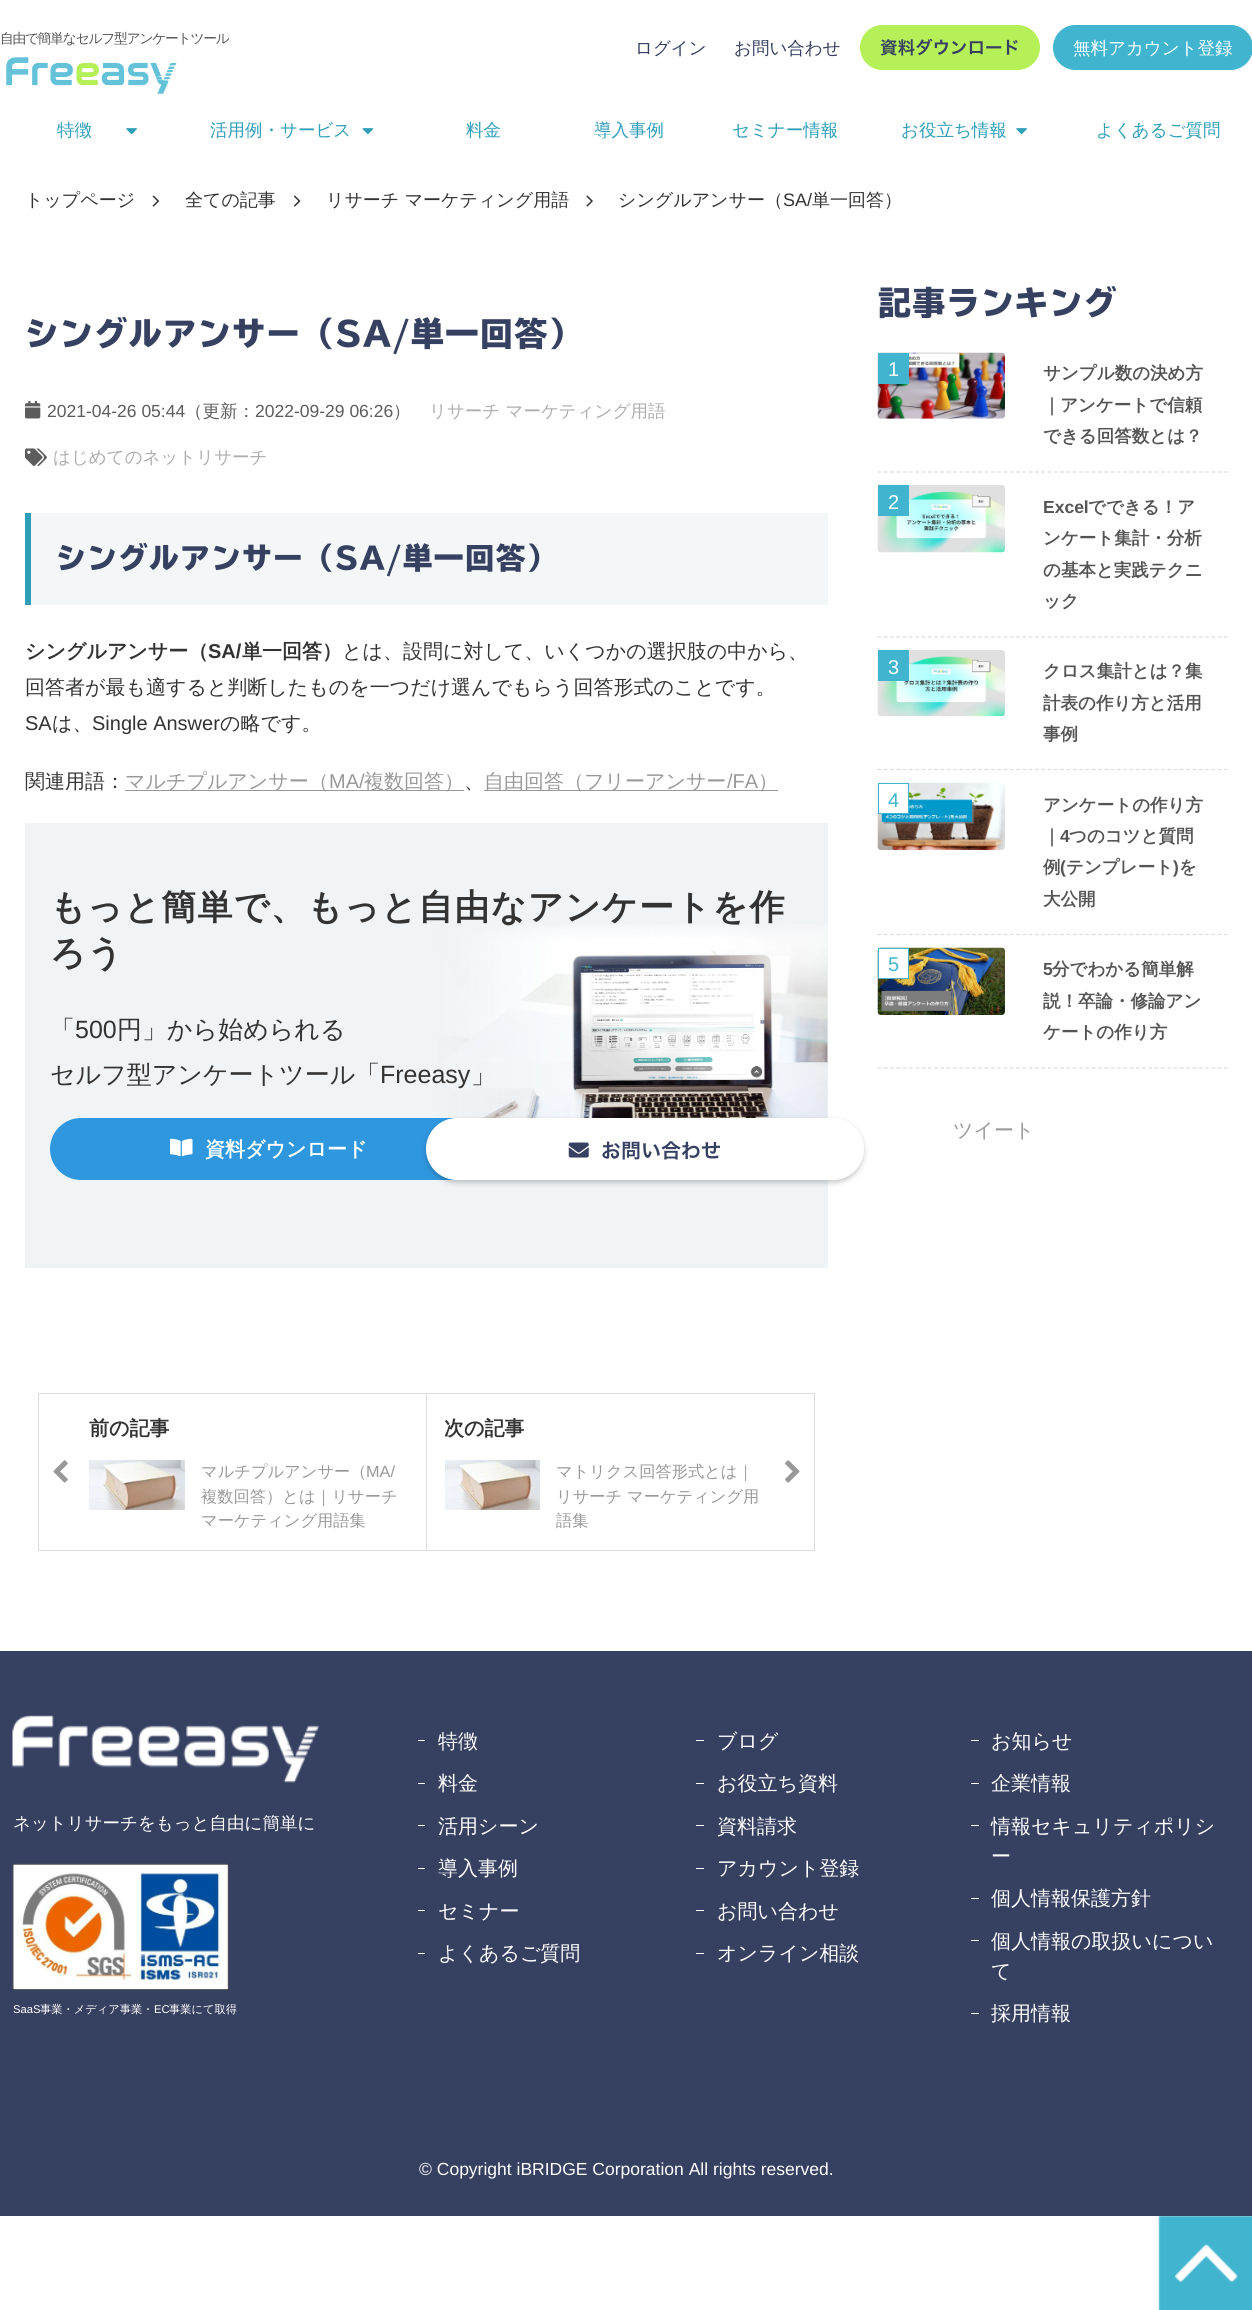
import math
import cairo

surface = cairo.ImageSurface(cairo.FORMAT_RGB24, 1252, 2310)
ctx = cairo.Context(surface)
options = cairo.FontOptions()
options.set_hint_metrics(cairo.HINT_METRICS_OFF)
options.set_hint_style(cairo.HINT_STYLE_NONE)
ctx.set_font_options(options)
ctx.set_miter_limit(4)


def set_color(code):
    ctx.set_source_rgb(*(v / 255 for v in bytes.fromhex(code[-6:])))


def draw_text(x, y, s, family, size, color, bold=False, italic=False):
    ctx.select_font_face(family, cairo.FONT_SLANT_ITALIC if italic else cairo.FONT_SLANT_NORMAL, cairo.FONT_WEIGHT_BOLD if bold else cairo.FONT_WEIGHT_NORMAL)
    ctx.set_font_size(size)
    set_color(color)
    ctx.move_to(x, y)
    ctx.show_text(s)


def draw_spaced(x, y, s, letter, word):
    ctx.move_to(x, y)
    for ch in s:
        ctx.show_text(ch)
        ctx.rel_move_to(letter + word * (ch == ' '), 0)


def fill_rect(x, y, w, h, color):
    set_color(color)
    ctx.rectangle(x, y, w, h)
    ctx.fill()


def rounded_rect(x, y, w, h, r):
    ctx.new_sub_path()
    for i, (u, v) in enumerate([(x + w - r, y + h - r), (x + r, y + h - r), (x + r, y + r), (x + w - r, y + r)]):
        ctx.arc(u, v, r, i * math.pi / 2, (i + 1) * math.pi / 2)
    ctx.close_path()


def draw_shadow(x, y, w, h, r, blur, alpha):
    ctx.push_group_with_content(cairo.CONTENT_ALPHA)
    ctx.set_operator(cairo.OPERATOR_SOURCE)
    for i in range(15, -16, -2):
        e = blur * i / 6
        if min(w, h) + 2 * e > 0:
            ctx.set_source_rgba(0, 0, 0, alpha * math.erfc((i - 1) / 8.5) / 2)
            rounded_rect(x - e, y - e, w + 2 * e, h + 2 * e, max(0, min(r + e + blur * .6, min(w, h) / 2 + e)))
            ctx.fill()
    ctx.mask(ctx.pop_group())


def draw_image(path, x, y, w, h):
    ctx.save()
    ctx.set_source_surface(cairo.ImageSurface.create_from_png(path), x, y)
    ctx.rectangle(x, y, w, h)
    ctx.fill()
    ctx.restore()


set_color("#ffffff")
ctx.paint()
ctx.select_font_face("WenQuanYi Zen Hei Medium")
ctx.set_font_size(13.75)
set_color("#555555")
draw_spaced(0, 43, "自由で簡単なセルフ型アンケートツール", -1.25, 0)
draw_image("assets/img1.png", 6, 57, 171, 37)
draw_text(635, 54, "ログイン", "WenQuanYi Zen Hei Medium", 17.5, "#364061")
draw_text(734, 54, "お問い合わせ", "WenQuanYi Zen Hei Medium", 17.5, "#364061")
set_color("#b5f058")
rounded_rect(860.5, 25.5, 179, 44, 22)
ctx.fill_preserve()
ctx.set_line_width(1)
ctx.stroke()
draw_text(880, 54, "資料ダウンロード", "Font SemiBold", 17.5, "#364061")
set_color("#41b5d0")
rounded_rect(1053.5, 25.5, 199, 44, 22)
ctx.fill_preserve()
ctx.stroke()
draw_text(1073, 54, "無料アカウント登録", "WenQuanYi Zen Hei Medium", 17.5, "#ffffff")
draw_text(57, 136, "特徴", "WenQuanYi Zen Hei Medium", 17.5, "#2e9eb9")
draw_image("assets/img2.png", 126, 128, 11, 7)
draw_text(210, 136, "活用例・サービス", "WenQuanYi Zen Hei Medium", 17.5, "#2e9eb9")
draw_image("assets/img3.png", 362, 128, 12, 7)
draw_text(466, 136, "料金", "WenQuanYi Zen Hei Medium", 17.5, "#2e9eb9")
draw_text(594, 136, "導入事例", "WenQuanYi Zen Hei Medium", 17.5, "#2e9eb9")
draw_text(732, 136, "セミナー情報", "WenQuanYi Zen Hei Medium", 17.5, "#2e9eb9")
draw_text(901, 136, "お役立ち情報", "WenQuanYi Zen Hei Medium", 17.5, "#2e9eb9")
draw_image("assets/img2.png", 1016, 128, 11, 7)
draw_text(1096, 136, "よくあるご質問", "WenQuanYi Zen Hei Medium", 17.5, "#2e9eb9")
draw_text(25, 206, "トップページ", "WenQuanYi Zen Hei Medium", 18, "#333333")
draw_image("assets/img4.png", 152, 195, 8, 12)
draw_text(185, 206, "全ての記事", "WenQuanYi Zen Hei Medium", 18, "#333333")
draw_image("assets/img5.png", 293, 195, 8, 12)
draw_text(326, 206, "リサーチ マーケティング用語", "WenQuanYi Zen Hei Medium", 18, "#333333")
draw_image("assets/img6.png", 586, 195, 7, 12)
draw_text(618, 206, "シングルアンサー（", "WenQuanYi Zen Hei Medium", 18, "#333333")
draw_text(783, 206, "SA/", "Liberation Sans", 18, "#333333")
draw_text(812, 206, "単一回答）", "WenQuanYi Zen Hei Medium", 18, "#333333")
ctx.select_font_face("Font Black")
ctx.set_font_size(33.25)
set_color("#364061")
draw_spaced(25, 346, "シングルアンサー（SA/単一回答）", 1.25, 0)
draw_image("assets/img7.png", 25, 400, 16, 19)
draw_text(47, 417, "2021-04-26 05:44", "Liberation Sans", 17.5, "#5c5c5c")
draw_text(185, 417, "（更新：", "WenQuanYi Zen Hei Medium", 17.5, "#5c5c5c")
draw_text(255, 417, "2022-09-29 06:26", "Liberation Sans", 17.5, "#5c5c5c")
draw_text(393, 417, "）", "WenQuanYi Zen Hei Medium", 17.5, "#5c5c5c")
draw_text(429, 417, "リサーチ マーケティング用語", "WenQuanYi Zen Hei Medium", 17.5, "#adadad")
draw_image("assets/img8.png", 25, 448, 22, 18)
draw_text(53, 463, "はじめてのネットリサーチ", "WenQuanYi Zen Hei Medium", 17.5, "#adadad")
fill_rect(31, 513, 797, 92, "#f3f7f7")
fill_rect(25, 513, 6, 92, "#2e9eb9")
ctx.select_font_face("Font Black")
ctx.set_font_size(29.75)
set_color("#364061")
draw_spaced(56, 569, "シングルアンサー（SA/単一回答）", 1.25, 0)
draw_text(25, 658, "シングルアンサー（", "WenQuanYi Zen Hei", 20, "#333333", bold=True)
draw_text(208, 658, "SA/", "Liberation Sans", 20, "#333333", bold=True)
draw_text(242, 658, "単一回答）", "WenQuanYi Zen Hei", 20, "#333333", bold=True)
draw_text(342, 658, "とは、設問に対して、いくつかの選択肢の中から、", "WenQuanYi Zen Hei Medium", 20, "#333333")
draw_text(25, 694, "回答者が最も適すると判断したものを一つだけ選んでもらう回答形式のことです。", "WenQuanYi Zen Hei Medium", 20, "#333333")
draw_text(25, 730, "SA", "Liberation Sans", 20, "#333333")
draw_text(52, 730, "は、", "WenQuanYi Zen Hei Medium", 20, "#333333")
draw_text(92, 730, "Single Answer", "Liberation Sans", 20, "#333333")
draw_text(220, 730, "の略です。", "WenQuanYi Zen Hei Medium", 20, "#333333")
draw_text(25, 788, "関連用語：", "WenQuanYi Zen Hei Medium", 20, "#333333")
fill_rect(125, 790, 339, 1, "#999999")
draw_text(125, 788, "マルチプルアンサー（", "WenQuanYi Zen Hei Medium", 20, "#999999")
draw_text(329, 788, "MA/", "Liberation Sans", 20, "#999999")
draw_text(364, 788, "複数回答）", "WenQuanYi Zen Hei Medium", 20, "#999999")
draw_text(464, 788, "、", "WenQuanYi Zen Hei Medium", 20, "#333333")
fill_rect(484, 790, 294, 1, "#999999")
draw_text(484, 788, "自由回答（フリーアンサー", "WenQuanYi Zen Hei Medium", 20, "#999999")
draw_text(727, 788, "/FA", "Liberation Sans", 20, "#999999")
draw_text(758, 788, "）", "WenQuanYi Zen Hei Medium", 20, "#999999")
fill_rect(25, 823, 803, 445, "#f0f4f7")
draw_image("assets/img9.png", 438, 924, 390, 194)
ctx.select_font_face("WenQuanYi Zen Hei", cairo.FONT_SLANT_NORMAL, cairo.FONT_WEIGHT_BOLD)
ctx.set_font_size(35)
set_color("#333333")
draw_spaced(50, 919, "もっと簡単で、もっと自由なアンケートを作", 1.25, 0)
draw_spaced(50, 965, "ろう", 1.25, 0)
draw_text(50, 1038, "「", "WenQuanYi Zen Hei Medium", 25, "#333333")
draw_text(75, 1038, "500", "Liberation Sans", 25, "#333333")
draw_text(117, 1038, "円」から始められる", "WenQuanYi Zen Hei Medium", 25, "#333333")
draw_text(50, 1083, "セルフ型アンケートツール「", "WenQuanYi Zen Hei Medium", 25, "#333333")
draw_text(380, 1083, "Freeasy", "Liberation Sans", 25, "#333333")
draw_text(471, 1083, "」", "WenQuanYi Zen Hei Medium", 25, "#333333")
set_color("#2f97de")
rounded_rect(50, 1118, 438, 62, 31)
ctx.fill()
draw_image("assets/img10.png", 170, 1138, 23, 19)
draw_text(205, 1156, "資料ダウンロード", "WenQuanYi Zen Hei", 20, "#ffffff", bold=True)
set_color("#000000")
draw_shadow(426, 1120, 438, 63, 31.5, 2.5, 0.2)
set_color("#ffffff")
rounded_rect(426.5, 1118.5, 437, 61, 30.5)
ctx.fill_preserve()
ctx.stroke()
draw_image("assets/img11.png", 568, 1142, 21, 16)
draw_text(601, 1158, "お問い合わせ", "Font SemiBold", 20, "#364061")
fill_rect(426, 1393, 389, 1, "#dddddd")
fill_rect(814, 1393, 1, 158, "#dddddd")
fill_rect(426, 1550, 389, 1, "#dddddd")
fill_rect(426, 1393, 1, 158, "#dddddd")
fill_rect(38, 1393, 390, 1, "#dddddd")
fill_rect(38, 1550, 390, 1, "#dddddd")
fill_rect(38, 1393, 1, 158, "#dddddd")
draw_text(89, 1435, "前の記事", "WenQuanYi Zen Hei", 20, "#333333", bold=True)
draw_image("assets/img12.png", 53, 1460, 15, 23)
draw_image("assets/img13.png", 88, 1460, 97, 50)
draw_text(201, 1477, "マルチプルアンサー（", "WenQuanYi Zen Hei Medium", 16.25, "#999999")
draw_text(366, 1477, "MA/", "Liberation Sans", 16.25, "#999999")
draw_text(201, 1502, "複数回答）とは｜リサーチ", "WenQuanYi Zen Hei Medium", 16.25, "#999999")
draw_text(201, 1526, "マーケティング用語集", "WenQuanYi Zen Hei Medium", 16.25, "#999999")
draw_text(444, 1435, "次の記事", "WenQuanYi Zen Hei", 20, "#333333", bold=True)
draw_image("assets/img14.png", 445, 1460, 95, 50)
draw_text(556, 1477, "マトリクス回答形式とは｜", "WenQuanYi Zen Hei Medium", 16.25, "#999999")
draw_text(556, 1502, "リサーチ マーケティング用", "WenQuanYi Zen Hei Medium", 16.25, "#999999")
draw_text(556, 1526, "語集", "WenQuanYi Zen Hei Medium", 16.25, "#999999")
draw_image("assets/img15.png", 785, 1460, 15, 23)
ctx.select_font_face("Font Black")
ctx.set_font_size(33)
set_color("#364061")
draw_spaced(878, 315, "記事ランキング", 1.25, 0)
ctx.new_path()
ctx.move_to(877.5, 472)
ctx.line_to(1227.5, 472)
set_color("#dddddd")
ctx.set_line_width(1.2)
ctx.set_dash([3.75, 2.55])
ctx.stroke()
draw_image("assets/img16.png", 877, 352, 128, 67)
fill_rect(878, 353, 31, 31, "#41b5d0")
draw_text(888, 376, "1", "Liberation Sans", 20, "#ffffff")
draw_text(1043, 379, "サンプル数の決め方", "WenQuanYi Zen Hei", 17.5, "#555555", bold=True)
draw_text(1043, 411, "｜アンケートで信頼", "WenQuanYi Zen Hei", 17.5, "#555555", bold=True)
draw_text(1043, 442, "できる回答数とは？", "WenQuanYi Zen Hei", 17.5, "#555555", bold=True)
ctx.new_path()
ctx.move_to(877.5, 637)
ctx.line_to(1227.5, 637)
set_color("#dddddd")
ctx.stroke()
draw_image("assets/img17.png", 877, 485, 128, 68)
fill_rect(878, 485, 31, 31, "#41b5d0")
draw_text(888, 509, "2", "Liberation Sans", 20, "#ffffff")
draw_text(1043, 513, "Excel", "Liberation Sans", 17.5, "#555555", bold=True)
draw_text(1088, 513, "でできる！ア", "WenQuanYi Zen Hei", 17.5, "#555555", bold=True)
draw_text(1043, 544, "ンケート集計・分析", "WenQuanYi Zen Hei", 17.5, "#555555", bold=True)
draw_text(1043, 576, "の基本と実践テクニ", "WenQuanYi Zen Hei", 17.5, "#555555", bold=True)
draw_text(1043, 607, "ック", "WenQuanYi Zen Hei", 17.5, "#555555", bold=True)
ctx.new_path()
ctx.move_to(877.5, 769.5)
ctx.line_to(1227.5, 769.5)
set_color("#dddddd")
ctx.stroke()
draw_image("assets/img18.png", 877, 650, 128, 67)
fill_rect(878, 650, 31, 31, "#41b5d0")
draw_text(888, 674, "3", "Liberation Sans", 20, "#ffffff")
draw_text(1043, 677, "クロス集計とは？集", "WenQuanYi Zen Hei", 17.5, "#555555", bold=True)
draw_text(1043, 709, "計表の作り方と活用", "WenQuanYi Zen Hei", 17.5, "#555555", bold=True)
draw_text(1043, 740, "事例", "WenQuanYi Zen Hei", 17.5, "#555555", bold=True)
ctx.new_path()
ctx.move_to(877.5, 934.5)
ctx.line_to(1227.5, 934.5)
set_color("#dddddd")
ctx.stroke()
draw_image("assets/img19.png", 877, 782, 128, 68)
set_color("#ffffff")
ctx.rectangle(878.5, 783.5, 30, 30)
ctx.fill_preserve()
set_color("#41b5d0")
ctx.set_line_width(1)
ctx.set_dash([])
ctx.stroke()
draw_text(888, 807, "4", "Liberation Sans", 20, "#41b5d0")
draw_text(1043, 811, "アンケートの作り方", "WenQuanYi Zen Hei", 17.5, "#555555", bold=True)
draw_text(1043, 842, "｜", "WenQuanYi Zen Hei", 17.5, "#555555", bold=True)
draw_text(1060, 842, "4", "Liberation Sans", 17.5, "#555555", bold=True)
draw_text(1069, 842, "つのコツと質問", "WenQuanYi Zen Hei", 17.5, "#555555", bold=True)
draw_text(1043, 873, "例", "WenQuanYi Zen Hei", 17.5, "#555555", bold=True)
draw_text(1060, 873, "(", "Liberation Sans", 17.5, "#555555", bold=True)
draw_text(1066, 873, "テンプレート", "WenQuanYi Zen Hei", 17.5, "#555555", bold=True)
draw_text(1173, 873, ")", "Liberation Sans", 17.5, "#555555", bold=True)
draw_text(1179, 873, "を", "WenQuanYi Zen Hei", 17.5, "#555555", bold=True)
draw_text(1043, 905, "大公開", "WenQuanYi Zen Hei", 17.5, "#555555", bold=True)
ctx.new_path()
ctx.move_to(877.5, 1068)
ctx.line_to(1227.5, 1068)
set_color("#dddddd")
ctx.set_line_width(1.2)
ctx.set_dash([3.75, 2.55])
ctx.stroke()
draw_image("assets/img20.png", 877, 947, 128, 68)
set_color("#ffffff")
ctx.rectangle(878.5, 948.5, 30, 30)
ctx.fill_preserve()
set_color("#41b5d0")
ctx.set_line_width(1)
ctx.set_dash([])
ctx.stroke()
draw_text(888, 971, "5", "Liberation Sans", 20, "#41b5d0")
draw_text(1043, 975, "5", "Liberation Sans", 17.5, "#555555", bold=True)
draw_text(1052, 975, "分でわかる簡単解", "WenQuanYi Zen Hei", 17.5, "#555555", bold=True)
draw_text(1043, 1007, "説！卒論・修論アン", "WenQuanYi Zen Hei", 17.5, "#555555", bold=True)
draw_text(1043, 1038, "ケートの作り方", "WenQuanYi Zen Hei", 17.5, "#555555", bold=True)
draw_text(953, 1137, "ツイート", "WenQuanYi Zen Hei Medium", 20, "#999999")
fill_rect(0, 1651, 1252, 565, "#364061")
draw_image("assets/img21.png", 12, 1715, 307, 68)
draw_text(13, 1829, "ネットリサーチをもっと自由に簡単に", "WenQuanYi Zen Hei Medium", 17.5, "#ffffff")
draw_image("assets/img22.png", 12, 1863, 217, 127)
draw_text(13, 2013, "SaaS", "Liberation Sans", 11.25, "#ffffff")
draw_text(40, 2013, "事業・メディア事業・", "WenQuanYi Zen Hei Medium", 11.25, "#ffffff")
draw_text(154, 2013, "EC", "Liberation Sans", 11.25, "#ffffff")
draw_text(169, 2013, "事業にて取得", "WenQuanYi Zen Hei Medium", 11.25, "#ffffff")
fill_rect(418, 1740, 7, 1, "#ffffff")
draw_text(438, 1748, "特徴", "WenQuanYi Zen Hei Medium", 20, "#ffffff")
fill_rect(418, 1783, 7, 1, "#ffffff")
draw_text(438, 1790, "料金", "WenQuanYi Zen Hei Medium", 20, "#ffffff")
fill_rect(418, 1825, 7, 1, "#ffffff")
draw_text(438, 1833, "活用シーン", "WenQuanYi Zen Hei Medium", 20, "#ffffff")
fill_rect(418, 1868, 7, 1, "#ffffff")
draw_text(438, 1875, "導入事例", "WenQuanYi Zen Hei Medium", 20, "#ffffff")
fill_rect(418, 1910, 7, 1, "#ffffff")
draw_text(438, 1918, "セミナー", "WenQuanYi Zen Hei Medium", 20, "#ffffff")
fill_rect(418, 1953, 7, 1, "#ffffff")
draw_text(438, 1960, "よくあるご質問", "WenQuanYi Zen Hei Medium", 20, "#ffffff")
fill_rect(696, 1740, 8, 1, "#ffffff")
draw_text(717, 1748, "ブログ", "WenQuanYi Zen Hei Medium", 20, "#ffffff")
fill_rect(696, 1783, 8, 1, "#ffffff")
draw_text(717, 1790, "お役立ち資料", "WenQuanYi Zen Hei Medium", 20, "#ffffff")
fill_rect(696, 1825, 8, 1, "#ffffff")
draw_text(717, 1833, "資料請求", "WenQuanYi Zen Hei Medium", 20, "#ffffff")
fill_rect(696, 1868, 8, 1, "#ffffff")
draw_text(717, 1875, "アカウント登録", "WenQuanYi Zen Hei Medium", 20, "#ffffff")
fill_rect(696, 1910, 8, 1, "#ffffff")
draw_text(717, 1918, "お問い合わせ", "WenQuanYi Zen Hei Medium", 20, "#ffffff")
fill_rect(696, 1953, 8, 1, "#ffffff")
draw_text(717, 1960, "オンライン相談", "WenQuanYi Zen Hei Medium", 20, "#ffffff")
fill_rect(971, 1740, 8, 1, "#ffffff")
draw_text(991, 1748, "お知らせ", "WenQuanYi Zen Hei Medium", 20, "#ffffff")
fill_rect(971, 1783, 8, 1, "#ffffff")
draw_text(991, 1790, "企業情報", "WenQuanYi Zen Hei Medium", 20, "#ffffff")
fill_rect(971, 1825, 8, 1, "#ffffff")
draw_text(991, 1833, "情報セキュリティポリシ", "WenQuanYi Zen Hei Medium", 20, "#ffffff")
draw_text(991, 1863, "ー", "WenQuanYi Zen Hei Medium", 20, "#ffffff")
fill_rect(971, 1898, 8, 1, "#ffffff")
draw_text(991, 1905, "個人情報保護方針", "WenQuanYi Zen Hei Medium", 20, "#ffffff")
fill_rect(971, 1940, 8, 1, "#ffffff")
draw_text(991, 1948, "個人情報の取扱いについ", "WenQuanYi Zen Hei Medium", 20, "#ffffff")
draw_text(991, 1978, "て", "WenQuanYi Zen Hei Medium", 20, "#ffffff")
fill_rect(971, 2013, 8, 1, "#ffffff")
draw_text(991, 2020, "採用情報", "WenQuanYi Zen Hei Medium", 20, "#ffffff")
draw_image("assets/img23.png", 1158, 2216, 94, 94)
draw_text(419, 2175, "© Copyright iBRIDGE Corporation All rights reserved.", "Liberation Sans", 17.5, "#ffffff")
surface.write_to_png("output.png")
